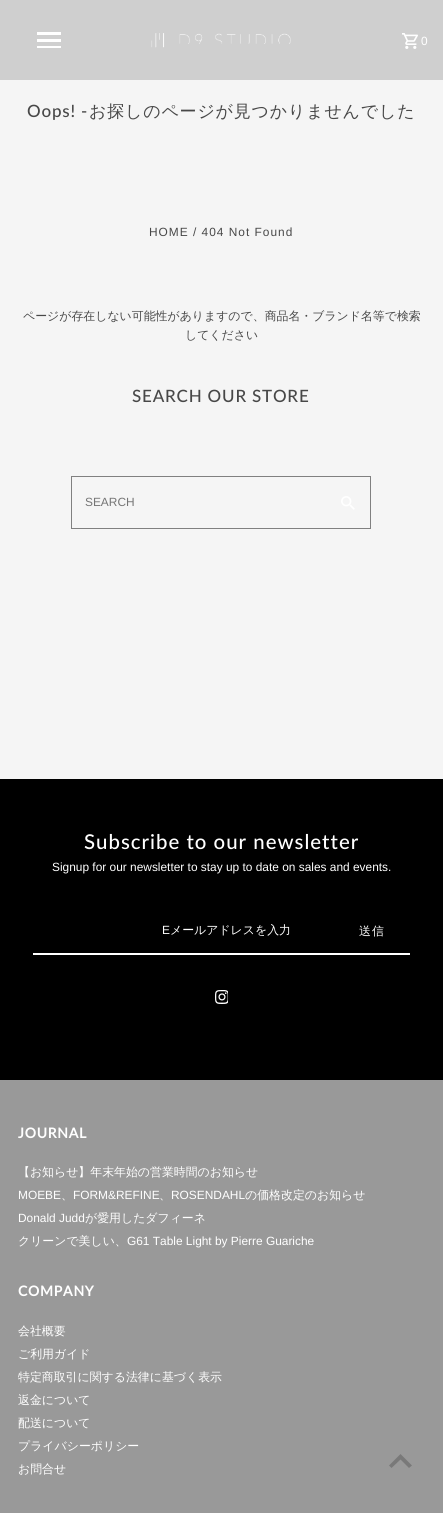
import math
import cairo

surface = cairo.ImageSurface(cairo.FORMAT_RGB24, 443, 1513)
ctx = cairo.Context(surface)
options = cairo.FontOptions()
options.set_hint_metrics(cairo.HINT_METRICS_OFF)
options.set_hint_style(cairo.HINT_STYLE_NONE)
ctx.set_font_options(options)
ctx.set_miter_limit(4)


def set_color(code):
    ctx.set_source_rgb(*(v / 255 for v in bytes.fromhex(code[-6:])))


def draw_text(x, y, s, family, size, color, bold=False, italic=False):
    ctx.select_font_face(family, cairo.FONT_SLANT_ITALIC if italic else cairo.FONT_SLANT_NORMAL, cairo.FONT_WEIGHT_BOLD if bold else cairo.FONT_WEIGHT_NORMAL)
    ctx.set_font_size(size)
    set_color(color)
    ctx.move_to(x, y)
    ctx.show_text(s)


def draw_spaced(x, y, s, letter, word):
    ctx.move_to(x, y)
    for ch in s:
        ctx.show_text(ch)
        ctx.rel_move_to(letter + word * (ch == ' '), 0)


def fill_rect(x, y, w, h, color):
    set_color(color)
    ctx.rectangle(x, y, w, h)
    ctx.fill()


def draw_image(path, x, y, w, h):
    ctx.save()
    ctx.set_source_surface(cairo.ImageSurface.create_from_png(path), x, y)
    ctx.rectangle(x, y, w, h)
    ctx.fill()
    ctx.restore()


set_color("#f5f5f5")
ctx.paint()
fill_rect(0, 0, 443, 80, "#cfcfcf")
fill_rect(37, 46, 24, 2, "#ffffff")
fill_rect(37, 39, 24, 3, "#ffffff")
fill_rect(37, 32, 24, 3, "#ffffff")
draw_image("assets/img1.png", 151, 33, 140, 15)
draw_image("assets/img2.png", 402, 33, 16, 16)
draw_text(421, 45, "0", "Liberation Sans", 11.9, "#ffffff")
ctx.select_font_face("Lato Medium")
ctx.set_font_size(17)
set_color("#484848")
draw_spaced(27, 117, "Oops! -", 0.8, 0)
ctx.select_font_face("WenQuanYi Zen Hei Medium")
draw_spaced(89, 117, "お探しのページが見つかりませんでした", 0.8, 0)
ctx.select_font_face("Liberation Sans")
ctx.set_font_size(11.9)
draw_spaced(149, 236, "HOME / 404 Not Found", 1, 0)
draw_text(23, 320, "ページが存在しない可能性がありますので、商品名・ブランド名等で検索", "WenQuanYi Zen Hei Medium", 11.9, "#484848")
draw_text(185, 339, "してください", "WenQuanYi Zen Hei Medium", 11.9, "#484848")
ctx.select_font_face("Lato Medium")
ctx.set_font_size(17)
draw_spaced(132, 402, "SEARCH OUR STORE", 0.8, 0)
ctx.rectangle(71.5, 476.5, 299, 52)
set_color("#808080")
ctx.set_line_width(1)
ctx.stroke()
draw_text(85, 506, "SEARCH", "Liberation Sans", 11.9, "#757575")
draw_image("assets/img3.png", 341, 496, 14, 14)
fill_rect(0, 779, 443, 301, "#000000")
ctx.select_font_face("Lato Medium")
ctx.set_font_size(20.4)
set_color("#ffffff")
draw_spaced(84, 849, "Subscribe to our newsletter", 1, 0)
draw_text(52, 871, "Signup for our newsletter to stay up to date on sales and events.", "Liberation Sans", 11.9, "#ffffff")
fill_rect(33, 953, 377, 2, "#ffffff")
draw_text(162, 934, "E", "Liberation Sans", 11.9, "#ffffff")
draw_text(170, 934, "メールアドレスを入力", "WenQuanYi Zen Hei Medium", 11.9, "#ffffff")
draw_spaced(359, 935, "送信", 1, 0)
draw_image("assets/img4.png", 215, 990, 13, 14)
fill_rect(0, 1080, 443, 433, "#999999")
ctx.select_font_face("Lato", cairo.FONT_SLANT_NORMAL, cairo.FONT_WEIGHT_BOLD)
ctx.set_font_size(14)
set_color("#ffffff")
draw_spaced(18, 1138, "JOURNAL", 0.75, 0)
draw_text(18, 1176, "【お知らせ】年末年始の営業時間のお知らせ", "WenQuanYi Zen Hei Medium", 11.9, "#ffffff")
draw_text(18, 1199, "MOEBE", "Liberation Sans", 11.9, "#ffffff")
draw_text(61, 1199, "、", "WenQuanYi Zen Hei Medium", 11.9, "#ffffff")
draw_text(73, 1199, "FORM&REFINE", "Liberation Sans", 11.9, "#ffffff")
draw_text(159, 1199, "、", "WenQuanYi Zen Hei Medium", 11.9, "#ffffff")
draw_text(171, 1199, "ROSENDAHL", "Liberation Sans", 11.9, "#ffffff")
draw_text(245, 1199, "の価格改定のお知らせ", "WenQuanYi Zen Hei Medium", 11.9, "#ffffff")
draw_text(18, 1222, "Donald Judd", "Liberation Sans", 11.9, "#ffffff")
draw_text(85, 1222, "が愛用したダフィーネ", "WenQuanYi Zen Hei Medium", 11.9, "#ffffff")
draw_text(18, 1245, "クリーンで美しい、", "WenQuanYi Zen Hei Medium", 11.9, "#ffffff")
draw_text(127, 1245, "G61 Table Light by Pierre Guariche", "Liberation Sans", 11.9, "#ffffff")
ctx.select_font_face("Lato", cairo.FONT_SLANT_NORMAL, cairo.FONT_WEIGHT_BOLD)
ctx.set_font_size(14)
draw_spaced(18, 1296, "COMPANY", 0.75, 0)
draw_text(18, 1335, "会社概要", "WenQuanYi Zen Hei Medium", 11.9, "#ffffff")
draw_text(18, 1358, "ご利用ガイド", "WenQuanYi Zen Hei Medium", 11.9, "#ffffff")
draw_text(18, 1381, "特定商取引に関する法律に基づく表示", "WenQuanYi Zen Hei Medium", 11.9, "#ffffff")
draw_text(18, 1404, "返金について", "WenQuanYi Zen Hei Medium", 11.9, "#ffffff")
draw_text(18, 1427, "配送について", "WenQuanYi Zen Hei Medium", 11.9, "#ffffff")
draw_text(18, 1450, "プライバシーポリシー", "WenQuanYi Zen Hei Medium", 11.9, "#ffffff")
draw_text(18, 1473, "お問合せ", "WenQuanYi Zen Hei Medium", 11.9, "#ffffff")
set_color("#797979")
ctx.new_path()
ctx.move_to(400.5, 1454)
ctx.line_to(389, 1465.5)
ctx.line_to(391.5, 1468)
ctx.line_to(400.5, 1459.5)
ctx.line_to(409, 1468)
ctx.line_to(412, 1465.5)
ctx.close_path()
ctx.fill()
surface.write_to_png("output.png")
